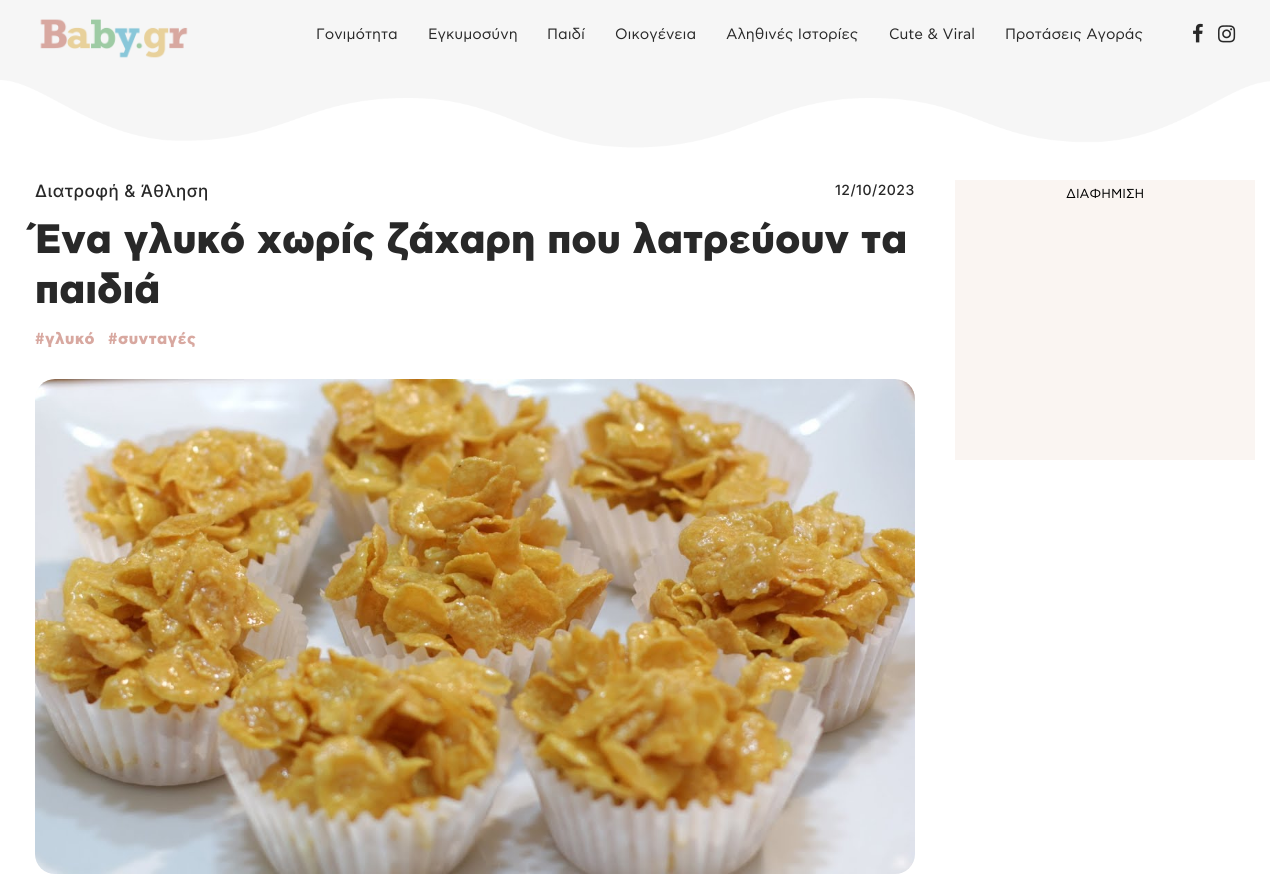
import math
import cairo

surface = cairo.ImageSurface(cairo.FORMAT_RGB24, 1270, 885)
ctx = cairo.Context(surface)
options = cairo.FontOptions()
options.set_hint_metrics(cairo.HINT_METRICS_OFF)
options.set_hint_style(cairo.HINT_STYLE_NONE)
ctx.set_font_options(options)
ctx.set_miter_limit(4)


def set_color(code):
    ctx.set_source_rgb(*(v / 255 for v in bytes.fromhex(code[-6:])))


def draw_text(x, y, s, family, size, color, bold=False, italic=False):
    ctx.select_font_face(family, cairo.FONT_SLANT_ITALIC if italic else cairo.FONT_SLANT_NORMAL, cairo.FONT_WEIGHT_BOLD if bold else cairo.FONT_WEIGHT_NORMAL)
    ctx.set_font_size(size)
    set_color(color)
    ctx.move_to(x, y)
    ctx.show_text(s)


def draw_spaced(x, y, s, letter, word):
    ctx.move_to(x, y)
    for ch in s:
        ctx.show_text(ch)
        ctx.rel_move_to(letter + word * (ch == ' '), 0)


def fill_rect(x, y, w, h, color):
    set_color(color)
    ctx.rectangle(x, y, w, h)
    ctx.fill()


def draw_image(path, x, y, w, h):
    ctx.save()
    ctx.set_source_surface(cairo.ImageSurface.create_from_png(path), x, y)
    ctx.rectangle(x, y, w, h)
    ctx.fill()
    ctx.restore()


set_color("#ffffff")
ctx.paint()
fill_rect(0, 0, 1270, 148, "#f6f6f6")
draw_image("assets/img1.png", 40, 19, 148, 39)
draw_text(316, 39, "Γονιμότητα", "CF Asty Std", 15, "#282828")
draw_text(428, 39, "Εγκυμοσύνη", "CF Asty Std", 15, "#282828")
draw_text(547, 39, "Παιδί", "CF Asty Std", 15, "#282828")
draw_text(615, 39, "Οικογένεια", "CF Asty Std", 15, "#282828")
draw_text(726, 39, "Αληθινές Ιστορίες", "CF Asty Std", 15, "#282828")
draw_text(889, 39, "Cute & Viral", "CF Asty Std", 15, "#282828")
draw_text(1005, 39, "Προτάσεις Αγοράς", "CF Asty Std", 15, "#282828")
draw_image("assets/img2.png", 1193, 23, 10, 20)
draw_image("assets/img3.png", 1218, 25, 18, 18)
draw_image("assets/img4.png", 0, 80, 1270, 70)
ctx.select_font_face("Inter Medium")
ctx.set_font_size(17)
draw_spaced(35, 197, "Διατροφή & Άθληση", 0.5, 0)
ctx.set_font_size(14)
draw_spaced(835, 195, "12/10/2023", 0.5, 0)
draw_text(35, 253, "Ένα γλυκό χωρίς ζάχαρη που λατρεύουν τα", "CF Asty Std ExtraBold", 41, "#282828")
draw_text(35, 303, "παιδιά", "CF Asty Std ExtraBold", 41, "#282828")
ctx.set_font_size(16)
set_color("#d8a8a0")
draw_spaced(35, 344, "#γλυκό", 0.5, 0)
draw_spaced(108, 344, "#συνταγές", 0.5, 0)
draw_image("assets/img5.png", 35, 379, 880, 495)
fill_rect(955, 180, 300, 280, "#faf5f2")
draw_text(1066, 198, "ΔΙΑΦΗΜΙΣΗ", "CF Asty Std", 13, "#000000")
surface.write_to_png("output.png")
